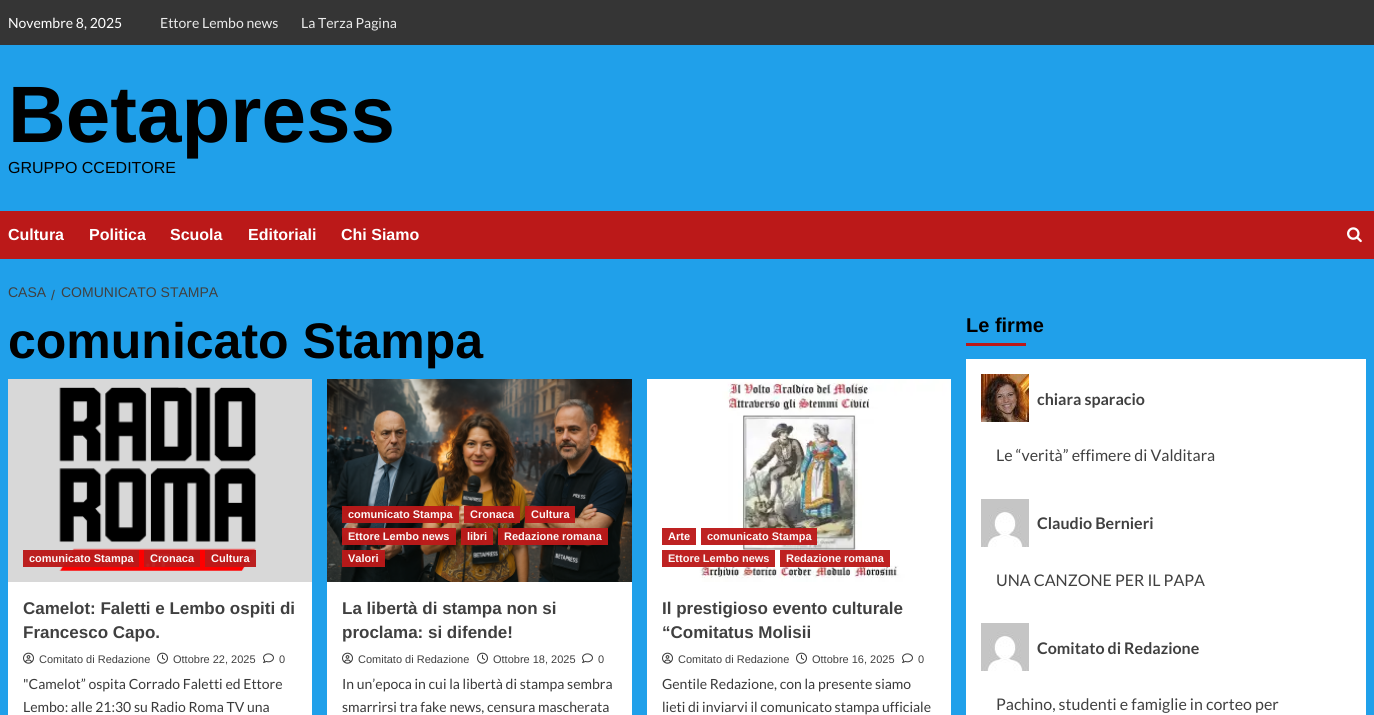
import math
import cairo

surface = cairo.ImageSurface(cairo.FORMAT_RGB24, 1374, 715)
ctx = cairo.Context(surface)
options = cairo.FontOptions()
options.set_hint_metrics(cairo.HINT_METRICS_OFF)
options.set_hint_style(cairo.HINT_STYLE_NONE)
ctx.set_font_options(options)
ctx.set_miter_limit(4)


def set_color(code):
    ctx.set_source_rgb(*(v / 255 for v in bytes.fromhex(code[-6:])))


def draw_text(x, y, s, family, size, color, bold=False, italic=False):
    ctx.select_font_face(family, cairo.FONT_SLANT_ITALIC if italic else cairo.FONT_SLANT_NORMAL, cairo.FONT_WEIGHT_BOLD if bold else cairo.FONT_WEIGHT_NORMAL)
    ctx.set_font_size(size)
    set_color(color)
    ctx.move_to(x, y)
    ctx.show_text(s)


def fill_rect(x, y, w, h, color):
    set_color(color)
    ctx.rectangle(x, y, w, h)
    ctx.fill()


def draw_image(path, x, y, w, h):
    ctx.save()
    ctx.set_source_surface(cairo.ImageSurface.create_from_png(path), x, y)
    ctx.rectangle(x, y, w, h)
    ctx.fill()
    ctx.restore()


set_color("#20a0ea")
ctx.paint()
fill_rect(0, 0, 1374, 45, "#353535")
draw_text(8, 28, "Novembre 8, 2025", "Lato", 14, "#ffffff")
draw_text(160, 28, "Ettore Lembo news", "Lato", 14, "#ebebeb")
draw_text(301, 28, "La Terza Pagina", "Lato", 14, "#ebebeb")
draw_text(8, 142, "Betapress", "Liberation Sans", 80, "#000000", bold=True)
draw_text(8, 173, "GRUPPO CCEDITORE", "Liberation Sans", 16, "#000000")
fill_rect(0, 211, 1374, 48, "#bb1919")
draw_text(8, 240, "Cultura", "Liberation Sans", 16, "#ffffff", bold=True)
draw_text(89, 240, "Politica", "Liberation Sans", 16, "#ffffff", bold=True)
draw_text(170, 240, "Scuola", "Liberation Sans", 16, "#ffffff", bold=True)
draw_text(248, 240, "Editoriali", "Liberation Sans", 16, "#ffffff", bold=True)
draw_text(341, 240, "Chi Siamo", "Liberation Sans", 16, "#ffffff", bold=True)
draw_image("assets/img1.png", 1347, 227, 15, 16)
draw_text(8, 297, "CASA", "Liberation Sans", 14, "#404040")
draw_text(51, 300, "/", "Liberation Sans", 14, "#404040")
draw_text(61, 297, "COMUNICATO STAMPA", "Liberation Sans", 14, "#404040")
draw_text(8, 358, "comunicato Stampa", "Liberation Sans", 50, "#000000", bold=True)
fill_rect(8, 582, 304, 133, "#ffffff")
fill_rect(8, 379, 304, 203, "#d8d8d8")
draw_image("assets/img2.png", 59, 387, 197, 184)
ctx.set_source_rgba(0.733, 0.098, 0.098, 0.96)
ctx.rectangle(23, 550, 116, 17)
ctx.fill()
draw_text(29, 562, "comunicato Stampa", "Liberation Sans", 11, "#fcf6f6", bold=True)
ctx.set_source_rgba(0.733, 0.098, 0.098, 0.96)
ctx.rectangle(144, 550, 56, 17)
ctx.fill()
draw_text(150, 562, "Cronaca", "Liberation Sans", 11, "#fcf6f6", bold=True)
ctx.set_source_rgba(0.733, 0.098, 0.098, 0.96)
ctx.rectangle(205, 550, 51, 17)
ctx.fill()
draw_text(211, 562, "Cultura", "Liberation Sans", 11, "#fcf6f6", bold=True)
draw_text(23, 614, "Camelot: Faletti e Lembo ospiti di", "Liberation Sans", 17, "#404040", bold=True)
draw_text(23, 638, "Francesco Capo.", "Liberation Sans", 17, "#404040", bold=True)
draw_image("assets/img3.png", 23, 652, 11, 12)
draw_text(39, 663, "Comitato di Redazione", "Liberation Sans", 11, "#404040")
draw_image("assets/img4.png", 157, 652, 11, 12)
draw_text(173, 663, "Ottobre 22, 2025", "Liberation Sans", 11, "#404040")
draw_image("assets/img5.png", 263, 653, 11, 10)
draw_text(279, 663, "0", "Liberation Sans", 11, "#404040")
draw_text(23, 689, "\"Camelot” ospita Corrado Faletti ed Ettore", "Lato", 14, "#3a3a3a")
draw_text(23, 712, "Lembo: alle 21:30 su Radio Roma TV una", "Lato", 14, "#3a3a3a")
fill_rect(327, 582, 305, 133, "#ffffff")
draw_image("assets/img6.png", 327, 379, 305, 203)
ctx.set_source_rgba(0.733, 0.098, 0.098, 0.96)
ctx.rectangle(342, 506, 117, 17)
ctx.fill()
draw_text(348, 518, "comunicato Stampa", "Liberation Sans", 11, "#fcf6f6", bold=True)
ctx.set_source_rgba(0.733, 0.098, 0.098, 0.96)
ctx.rectangle(464, 506, 56, 17)
ctx.fill()
draw_text(470, 518, "Cronaca", "Liberation Sans", 11, "#fcf6f6", bold=True)
ctx.set_source_rgba(0.733, 0.098, 0.098, 0.96)
ctx.rectangle(525, 506, 50, 17)
ctx.fill()
draw_text(531, 518, "Cultura", "Liberation Sans", 11, "#fcf6f6", bold=True)
ctx.set_source_rgba(0.733, 0.098, 0.098, 0.96)
ctx.rectangle(342, 528, 114, 17)
ctx.fill()
draw_text(348, 540, "Ettore Lembo news", "Liberation Sans", 11, "#fcf6f6", bold=True)
ctx.set_source_rgba(0.733, 0.098, 0.098, 0.96)
ctx.rectangle(461, 528, 32, 17)
ctx.fill()
draw_text(467, 540, "libri", "Liberation Sans", 11, "#fcf6f6", bold=True)
ctx.set_source_rgba(0.733, 0.098, 0.098, 0.96)
ctx.rectangle(498, 528, 110, 17)
ctx.fill()
draw_text(504, 540, "Redazione romana", "Liberation Sans", 11, "#fcf6f6", bold=True)
ctx.set_source_rgba(0.733, 0.098, 0.098, 0.96)
ctx.rectangle(342, 550, 43, 17)
ctx.fill()
draw_text(348, 562, "Valori", "Liberation Sans", 11, "#fcf6f6", bold=True)
draw_text(342, 614, "La libertà di stampa non si", "Liberation Sans", 17, "#404040", bold=True)
draw_text(342, 638, "proclama: si difende!", "Liberation Sans", 17, "#404040", bold=True)
draw_image("assets/img3.png", 342, 652, 11, 12)
draw_text(358, 663, "Comitato di Redazione", "Liberation Sans", 11, "#404040")
draw_image("assets/img4.png", 477, 652, 11, 12)
draw_text(493, 663, "Ottobre 18, 2025", "Liberation Sans", 11, "#404040")
draw_image("assets/img5.png", 582, 653, 11, 10)
draw_text(598, 663, "0", "Liberation Sans", 11, "#404040")
draw_text(342, 689, "In un’epoca in cui la libertà di stampa sembra", "Lato", 14, "#3a3a3a")
draw_text(342, 712, "smarrirsi tra fake news, censura mascherata", "Lato", 14, "#3a3a3a")
fill_rect(647, 582, 304, 133, "#ffffff")
draw_image("assets/img7.png", 647, 379, 304, 203)
fill_rect(662, 528, 34, 17, "#be2222")
draw_text(668, 540, "Arte", "Liberation Sans", 11, "#ffffff", bold=True)
ctx.set_source_rgba(0.733, 0.098, 0.098, 0.96)
ctx.rectangle(701, 528, 116, 17)
ctx.fill()
draw_text(707, 540, "comunicato Stampa", "Liberation Sans", 11, "#fcf6f6", bold=True)
ctx.set_source_rgba(0.733, 0.098, 0.098, 0.96)
ctx.rectangle(662, 550, 113, 17)
ctx.fill()
draw_text(668, 562, "Ettore Lembo news", "Liberation Sans", 11, "#fcf6f6", bold=True)
ctx.set_source_rgba(0.733, 0.098, 0.098, 0.96)
ctx.rectangle(780, 550, 110, 17)
ctx.fill()
draw_text(786, 562, "Redazione romana", "Liberation Sans", 11, "#fcf6f6", bold=True)
draw_text(662, 614, "Il prestigioso evento culturale", "Liberation Sans", 17, "#404040", bold=True)
draw_text(662, 638, "“Comitatus Molisii", "Liberation Sans", 17, "#404040", bold=True)
draw_image("assets/img3.png", 662, 652, 11, 12)
draw_text(678, 663, "Comitato di Redazione", "Liberation Sans", 11, "#404040")
draw_image("assets/img4.png", 796, 652, 11, 12)
draw_text(812, 663, "Ottobre 16, 2025", "Liberation Sans", 11, "#404040")
draw_image("assets/img5.png", 902, 653, 11, 10)
draw_text(918, 663, "0", "Liberation Sans", 11, "#404040")
draw_text(662, 689, "Gentile Redazione, con la presente siamo", "Lato", 14, "#3a3a3a")
draw_text(662, 712, "lieti di inviarvi il comunicato stampa ufficiale", "Lato", 14, "#3a3a3a")
draw_text(966, 332, "Le firme", "Liberation Sans", 20, "#000000", bold=True)
fill_rect(966, 343, 60, 3, "#bb1919")
fill_rect(966, 359, 400, 356, "#ffffff")
draw_image("assets/img8.png", 981, 374, 48, 48)
draw_text(1037, 405, "chiara sparacio", "Lato", 16, "#404040", bold=True)
draw_text(996, 461, "Le “verità” effimere di Valditara", "Lato", 16, "#404040")
draw_image("assets/img9.png", 981, 499, 48, 48)
draw_text(1037, 529, "Claudio Bernieri", "Lato", 16, "#404040", bold=True)
draw_text(996, 586, "UNA CANZONE PER IL PAPA", "Lato", 16, "#404040")
draw_image("assets/img9.png", 981, 623, 48, 48)
draw_text(1037, 654, "Comitato di Redazione", "Lato", 16, "#404040", bold=True)
draw_text(996, 710, "Pachino, studenti e famiglie in corteo per", "Lato", 16, "#404040")
surface.write_to_png("output.png")
